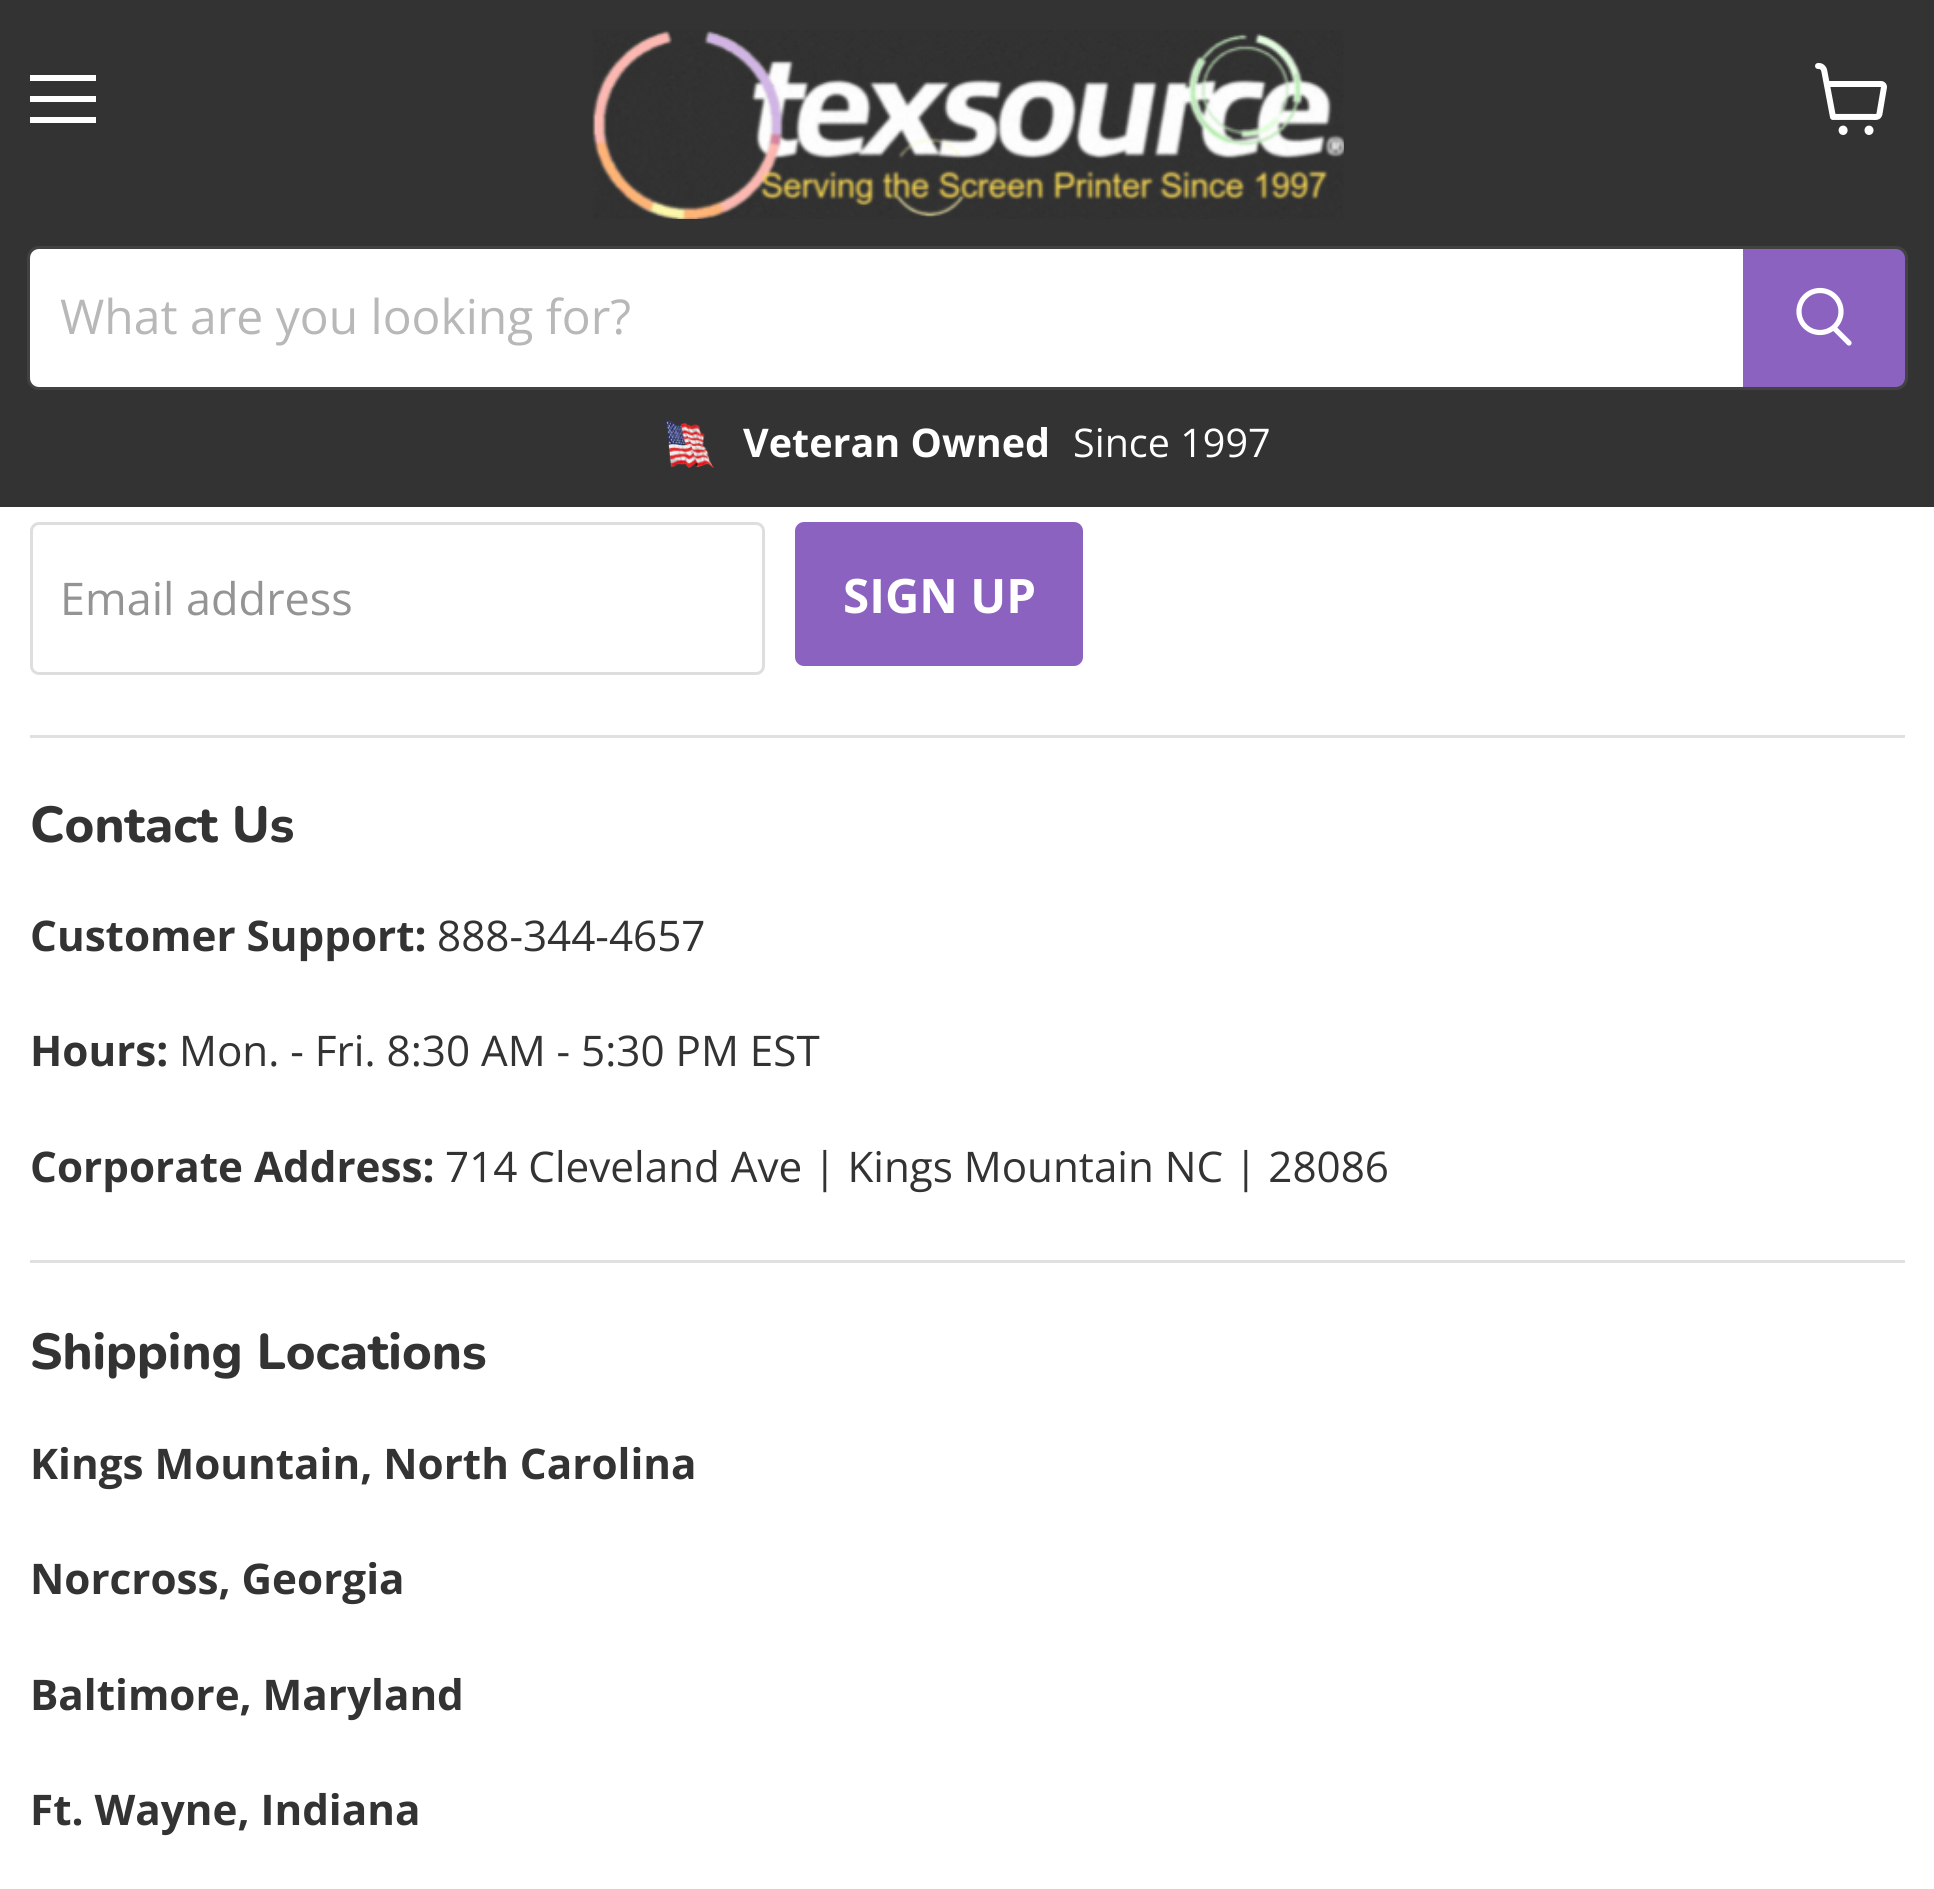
import math
import cairo

surface = cairo.ImageSurface(cairo.FORMAT_RGB24, 1934, 1889)
ctx = cairo.Context(surface)
options = cairo.FontOptions()
options.set_hint_metrics(cairo.HINT_METRICS_OFF)
options.set_hint_style(cairo.HINT_STYLE_NONE)
ctx.set_font_options(options)
ctx.set_miter_limit(4)


def set_color(code):
    ctx.set_source_rgb(*(v / 255 for v in bytes.fromhex(code[-6:])))


def draw_text(x, y, s, family, size, color, bold=False, italic=False):
    ctx.select_font_face(family, cairo.FONT_SLANT_ITALIC if italic else cairo.FONT_SLANT_NORMAL, cairo.FONT_WEIGHT_BOLD if bold else cairo.FONT_WEIGHT_NORMAL)
    ctx.set_font_size(size)
    set_color(color)
    ctx.move_to(x, y)
    ctx.show_text(s)


def fill_rect(x, y, w, h, color):
    set_color(color)
    ctx.rectangle(x, y, w, h)
    ctx.fill()


def rounded_rect(x, y, w, h, r):
    ctx.new_sub_path()
    for i, (u, v) in enumerate([(x + w - r, y + h - r), (x + r, y + h - r), (x + r, y + r), (x + w - r, y + r)]):
        ctx.arc(u, v, r, i * math.pi / 2, (i + 1) * math.pi / 2)
    ctx.close_path()


def draw_image(path, x, y, w, h):
    ctx.save()
    ctx.set_source_surface(cairo.ImageSurface.create_from_png(path), x, y)
    ctx.rectangle(x, y, w, h)
    ctx.fill()
    ctx.restore()


set_color("#ffffff")
ctx.paint()
fill_rect(0, 0, 1934, 507, "#333333")
fill_rect(30, 75, 66, 6, "#ffffff")
fill_rect(30, 96, 66, 6, "#ffffff")
fill_rect(30, 117, 66, 6, "#ffffff")
draw_image("assets/img1.png", 1815, 63, 72, 72)
draw_image("assets/img2.png", 592, 30, 752, 189)
rounded_rect(28.5, 247.5, 1878, 141, 10.5)
ctx.set_source_rgba(0.502, 0.502, 0.502, 0.2)
ctx.set_line_width(3)
ctx.stroke()
set_color("#ffffff")
ctx.new_path()
ctx.move_to(39, 249)
ctx.line_to(1743, 249)
ctx.line_to(1743, 387)
ctx.line_to(39, 387)
ctx.curve_to(34, 387, 30, 383, 30, 378)
ctx.line_to(30, 258)
ctx.curve_to(30, 253, 34, 249, 39, 249)
ctx.close_path()
ctx.fill()
draw_text(60, 334, "What are you looking for?", "Open Sans", 48, "#b8b8b8")
set_color("#8c62c1")
ctx.new_path()
ctx.move_to(1744.5, 250.5)
ctx.line_to(1896, 250.5)
ctx.curve_to(1900, 250.5, 1903.5, 254, 1903.5, 258)
ctx.line_to(1903.5, 378)
ctx.curve_to(1903.5, 382, 1900, 385.5, 1896, 385.5)
ctx.line_to(1744.5, 385.5)
ctx.close_path()
ctx.fill_preserve()
ctx.stroke()
ctx.new_path()
ctx.move_to(1849, 343)
ctx.line_to(1834.5, 328.5)
set_color("#ffffff")
ctx.set_line_width(5.2)
ctx.set_line_cap(cairo.LINE_CAP_ROUND)
ctx.stroke()
ctx.arc(1820, 311.5, 21, 0, 2 * math.pi)
ctx.set_line_cap(cairo.LINE_CAP_BUTT)
ctx.stroke()
draw_image("assets/img3.png", 666, 420, 48, 48)
draw_text(743, 457, "Veteran Owned", "Open Sans", 39.5, "#ffffff", bold=True)
draw_text(1073, 457, "Since 1997", "Open Sans", 39.5, "#ffffff")
fill_rect(30, 735, 1875, 3, "#e0e0e0")
rounded_rect(31.5, 523.5, 732, 150, 7.5)
set_color("#dedede")
ctx.set_line_width(3)
ctx.stroke()
draw_text(60, 615, "Email address", "Open Sans", 45, "#949494")
set_color("#8c62c1")
rounded_rect(796.5, 523.5, 285, 141, 7.5)
ctx.fill_preserve()
ctx.stroke()
draw_text(843, 613, "SIGN UP", "Open Sans", 47.5, "#ffffff", bold=True)
fill_rect(30, 1260, 1875, 3, "#e0e0e0")
draw_text(30, 842, "Contact Us", "Nunito ExtraBold", 50.6, "#333333")
draw_text(30, 951, "Customer Support:", "Open Sans", 42.2, "#333333", bold=True)
draw_text(437, 951, "888-344-4657", "Open Sans", 42.2, "#333333")
draw_text(30, 1066, "Hours:", "Open Sans", 42.2, "#333333", bold=True)
draw_text(179, 1066, "Mon. - Fri. 8:30 AM - 5:30 PM EST", "Open Sans", 42.2, "#333333")
draw_text(30, 1182, "Corporate Address:", "Open Sans", 42.2, "#333333", bold=True)
draw_text(445, 1182, "714 Cleveland Ave | Kings Mountain NC | 28086", "Open Sans", 42.2, "#333333")
draw_text(30, 1369, "Shipping Locations", "Nunito ExtraBold", 50.6, "#333333")
draw_text(30, 1479, "Kings Mountain, North Carolina", "Open Sans", 42.2, "#333333", bold=True)
draw_text(30, 1594, "Norcross, Georgia", "Open Sans", 42.2, "#333333", bold=True)
draw_text(30, 1710, "Baltimore, Maryland", "Open Sans", 42.2, "#333333", bold=True)
draw_text(30, 1825, "Ft. Wayne, Indiana", "Open Sans", 42.2, "#333333", bold=True)
surface.write_to_png("output.png")
